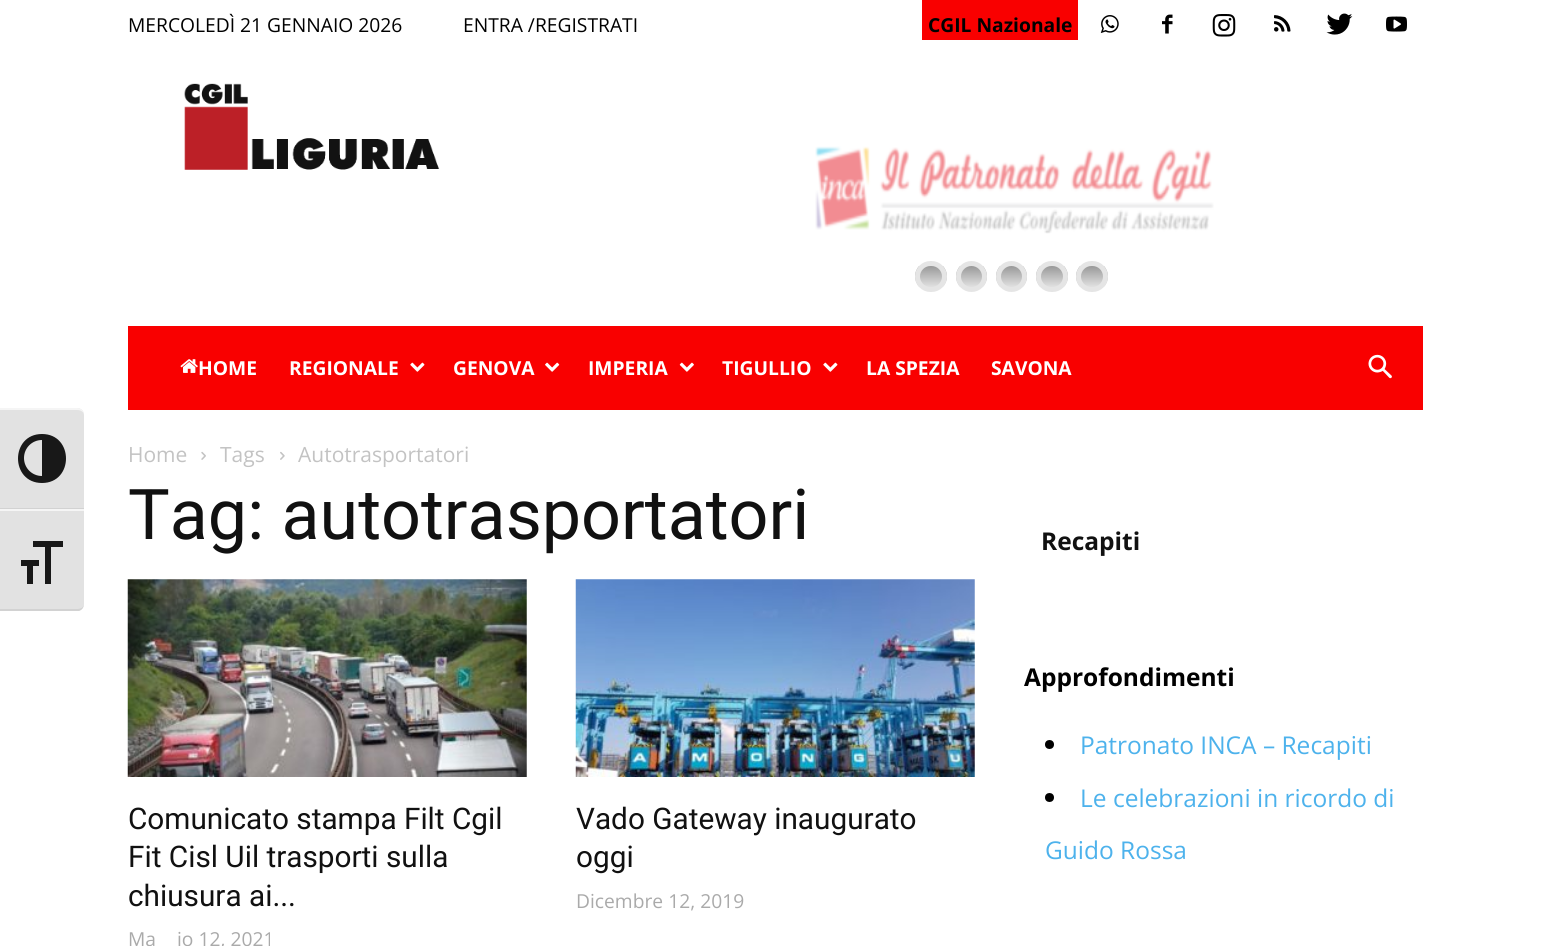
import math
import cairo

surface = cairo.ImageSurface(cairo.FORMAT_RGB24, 1549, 946)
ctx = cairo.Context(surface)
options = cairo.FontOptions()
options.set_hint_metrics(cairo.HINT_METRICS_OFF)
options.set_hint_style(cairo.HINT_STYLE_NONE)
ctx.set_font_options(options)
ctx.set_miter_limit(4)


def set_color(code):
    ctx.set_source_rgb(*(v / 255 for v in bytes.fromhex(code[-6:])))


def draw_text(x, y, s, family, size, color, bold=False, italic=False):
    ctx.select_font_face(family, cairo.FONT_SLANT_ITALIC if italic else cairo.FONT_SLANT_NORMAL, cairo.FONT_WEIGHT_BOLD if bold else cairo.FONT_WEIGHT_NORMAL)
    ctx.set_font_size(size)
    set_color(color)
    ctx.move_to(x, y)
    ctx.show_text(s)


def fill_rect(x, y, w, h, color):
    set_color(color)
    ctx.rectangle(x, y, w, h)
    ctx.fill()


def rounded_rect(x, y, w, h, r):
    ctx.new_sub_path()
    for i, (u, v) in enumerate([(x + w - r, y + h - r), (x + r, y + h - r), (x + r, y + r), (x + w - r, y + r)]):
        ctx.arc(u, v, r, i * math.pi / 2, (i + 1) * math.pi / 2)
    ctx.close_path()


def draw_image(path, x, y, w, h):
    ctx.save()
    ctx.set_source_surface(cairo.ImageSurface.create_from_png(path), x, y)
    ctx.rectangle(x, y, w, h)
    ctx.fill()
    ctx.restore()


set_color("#ffffff")
ctx.paint()
set_color("#e2e2e2")
ctx.new_path()
ctx.move_to(0, 408)
ctx.line_to(77, 408)
ctx.curve_to(81, 408, 84, 411, 84, 415)
ctx.line_to(84, 509)
ctx.line_to(0, 509)
ctx.close_path()
ctx.fill()
set_color("#f5f5f5")
ctx.new_path()
ctx.move_to(0, 410)
ctx.line_to(77, 410)
ctx.curve_to(81, 410, 84, 412, 84, 415)
ctx.curve_to(84, 411, 81, 408, 77, 408)
ctx.line_to(0, 408)
ctx.close_path()
ctx.fill()
fill_rect(0, 508, 84, 1, "#d2d2d2")
set_color("#181818")
ctx.new_path()
ctx.move_to(42, 434)
ctx.curve_to(10, 434, 10, 483, 42, 483)
ctx.curve_to(74, 483, 74, 434, 42, 434)
ctx.close_path()
ctx.move_to(24, 458)
ctx.curve_to(24, 448, 32, 440, 42, 440)
ctx.line_to(42, 476)
ctx.curve_to(32, 476, 24, 468, 24, 458)
ctx.close_path()
ctx.fill()
set_color("#e2e2e2")
ctx.new_path()
ctx.move_to(0, 509)
ctx.line_to(84, 509)
ctx.line_to(84, 604)
ctx.curve_to(84, 608, 81, 611, 77, 611)
ctx.line_to(0, 611)
ctx.close_path()
ctx.fill()
fill_rect(0, 509, 84, 2, "#f5f5f5")
set_color("#d2d2d2")
ctx.new_path()
ctx.move_to(79, 611)
ctx.curve_to(82, 610, 84, 607, 84, 604)
ctx.curve_to(84, 607, 81, 609, 77, 609)
ctx.line_to(0, 609)
ctx.line_to(0, 611)
ctx.close_path()
ctx.fill()
set_color("#181818")
ctx.new_path()
ctx.move_to(21, 560)
ctx.line_to(39, 560)
ctx.line_to(39, 566)
ctx.line_to(33, 566)
ctx.line_to(33, 584)
ctx.line_to(27, 584)
ctx.line_to(27, 566)
ctx.line_to(21, 566)
ctx.close_path()
ctx.move_to(63, 547)
ctx.line_to(51, 547)
ctx.line_to(51, 584)
ctx.line_to(45, 584)
ctx.line_to(45, 547)
ctx.line_to(33, 547)
ctx.line_to(33, 541)
ctx.line_to(63, 541)
ctx.close_path()
ctx.fill()
draw_text(128, 32, "MERCOLEDÌ 21 GENNAIO 2026", "Open Sans", 19.25, "#000000")
draw_text(463, 32, "ENTRA /REGISTRATI", "Open Sans", 19.25, "#000000")
fill_rect(922, 0, 156, 40, "#f90000")
draw_text(928, 32, "CGIL Nazionale", "Open Sans", 19.25, "#000000", bold=True)
draw_image("assets/img1.png", 1100, 15, 19, 18)
draw_image("assets/img2.png", 1162, 14, 11, 20)
draw_image("assets/img3.png", 1212, 14, 24, 23)
draw_image("assets/img4.png", 1274, 15, 17, 17)
draw_image("assets/img5.png", 1326, 13, 27, 22)
draw_image("assets/img6.png", 1386, 16, 21, 16)
draw_image("assets/img7.png", 184, 83, 256, 87)
draw_image("assets/img8.png", 815, 146, 399, 88)
ctx.save()
rounded_rect(915, 261, 32, 31, 15.5)
ctx.clip()
gradient = cairo.LinearGradient(931, 266, 931, 287)
gradient.add_color_stop_rgba(0, 0.6, 0.6, 0.6, 1)
gradient.add_color_stop_rgba(1, 0.882, 0.882, 0.882, 1)
ctx.set_source(gradient)
ctx.rectangle(915, 266, 32, 21)
ctx.fill()
ctx.restore()
rounded_rect(917.5, 263.5, 27, 26, 13)
set_color("#e5e5e5")
ctx.set_line_width(5)
ctx.stroke()
ctx.save()
rounded_rect(956, 261, 31, 31, 15.5)
ctx.clip()
gradient = cairo.LinearGradient(971, 266, 971, 287)
gradient.add_color_stop_rgba(0, 0.6, 0.6, 0.6, 1)
gradient.add_color_stop_rgba(1, 0.882, 0.882, 0.882, 1)
ctx.set_source(gradient)
ctx.rectangle(956, 266, 31, 21)
ctx.fill()
ctx.restore()
ctx.arc(971.5, 276.5, 13, 0, 2 * math.pi)
ctx.stroke()
ctx.save()
rounded_rect(996, 261, 31, 31, 15.5)
ctx.clip()
gradient = cairo.LinearGradient(1012, 266, 1012, 287)
gradient.add_color_stop_rgba(0, 0.6, 0.6, 0.6, 1)
gradient.add_color_stop_rgba(1, 0.882, 0.882, 0.882, 1)
ctx.set_source(gradient)
ctx.rectangle(996, 266, 31, 21)
ctx.fill()
ctx.restore()
ctx.arc(1011.5, 276.5, 13, 0, 2 * math.pi)
ctx.stroke()
ctx.save()
rounded_rect(1036, 261, 32, 31, 15.5)
ctx.clip()
gradient = cairo.LinearGradient(1052, 266, 1052, 287)
gradient.add_color_stop_rgba(0, 0.6, 0.6, 0.6, 1)
gradient.add_color_stop_rgba(1, 0.882, 0.882, 0.882, 1)
ctx.set_source(gradient)
ctx.rectangle(1036, 266, 32, 21)
ctx.fill()
ctx.restore()
rounded_rect(1038.5, 263.5, 27, 26, 13)
ctx.stroke()
ctx.save()
rounded_rect(1076, 261, 32, 31, 15.5)
ctx.clip()
gradient = cairo.LinearGradient(1092, 266, 1092, 287)
gradient.add_color_stop_rgba(0, 0.6, 0.6, 0.6, 1)
gradient.add_color_stop_rgba(1, 0.882, 0.882, 0.882, 1)
ctx.set_source(gradient)
ctx.rectangle(1076, 266, 32, 21)
ctx.fill()
ctx.restore()
rounded_rect(1078.5, 263.5, 27, 26, 13)
ctx.stroke()
fill_rect(128, 326, 1295, 84, "#f90000")
draw_image("assets/img9.png", 180, 359, 18, 14)
draw_text(198, 375, "HOME", "Open Sans", 19.25, "#ffffff", bold=True)
draw_text(289, 375, "REGIONALE", "Open Sans", 19.25, "#ffffff", bold=True)
draw_image("assets/img10.png", 410, 362, 15, 10)
draw_text(453, 375, "GENOVA", "Open Sans", 19.25, "#ffffff", bold=True)
draw_image("assets/img11.png", 545, 362, 15, 10)
draw_text(588, 375, "IMPERIA", "Open Sans", 19.25, "#ffffff", bold=True)
draw_image("assets/img12.png", 679, 362, 15, 10)
draw_text(722, 375, "TIGULLIO", "Open Sans", 19.25, "#ffffff", bold=True)
draw_image("assets/img10.png", 823, 362, 15, 10)
draw_text(866, 375, "LA SPEZIA", "Open Sans", 19.25, "#ffffff", bold=True)
draw_text(991, 375, "SAVONA", "Open Sans", 19.25, "#ffffff", bold=True)
draw_image("assets/img13.png", 1368, 354, 24, 25)
draw_text(128, 462, "Home", "Open Sans", 21, "#c3c3c3")
draw_image("assets/img14.png", 201, 451, 5, 9)
draw_text(220, 462, "Tags", "Open Sans", 21, "#c3c3c3")
draw_image("assets/img15.png", 280, 451, 5, 9)
draw_text(298, 462, "Autotrasportatori", "Open Sans", 21, "#c3c3c3")
draw_text(128, 539, "Tag: autotrasportatori", "Roboto", 70, "#111111")
draw_image("assets/img16.png", 127, 579, 400, 198)
draw_text(128, 829, "Comunicato stampa Filt Cgil", "Roboto", 29.75, "#111111")
draw_text(128, 867, "Fit Cisl Uil trasporti sulla", "Roboto", 29.75, "#111111")
draw_text(128, 906, "chiusura ai...", "Roboto", 29.75, "#111111")
draw_text(128, 946, "Ma", "Open Sans", 19.25, "#aaaaaa")
draw_text(177, 946, "io 12, 2021", "Open Sans", 19.25, "#aaaaaa")
draw_image("assets/img17.png", 575, 579, 400, 198)
draw_text(576, 829, "Vado Gateway inaugurato", "Roboto", 29.75, "#111111")
draw_text(576, 867, "oggi", "Roboto", 29.75, "#111111")
draw_text(576, 908, "Dicembre 12, 2019", "Open Sans", 19.25, "#aaaaaa")
draw_text(1041, 550, "Recapiti", "Open Sans", 24.5, "#111111", bold=True)
draw_text(1024, 686, "Approfondimenti", "Open Sans", 24.5, "#000000", bold=True)
ctx.new_path()
ctx.arc(1049.5, 744.5, 4.5, 0, 2 * math.pi)
ctx.fill()
draw_text(1080, 754, "Patronato INCA – Recapiti", "Open Sans", 24.5, "#4db2ec")
set_color("#000000")
ctx.new_path()
ctx.arc(1049.5, 797.5, 4.5, 0, 2 * math.pi)
ctx.fill()
draw_text(1080, 807, "Le celebrazioni in ricordo di", "Open Sans", 24.5, "#4db2ec")
draw_text(1045, 859, "Guido Rossa", "Open Sans", 24.5, "#4db2ec")
surface.write_to_png("output.png")
